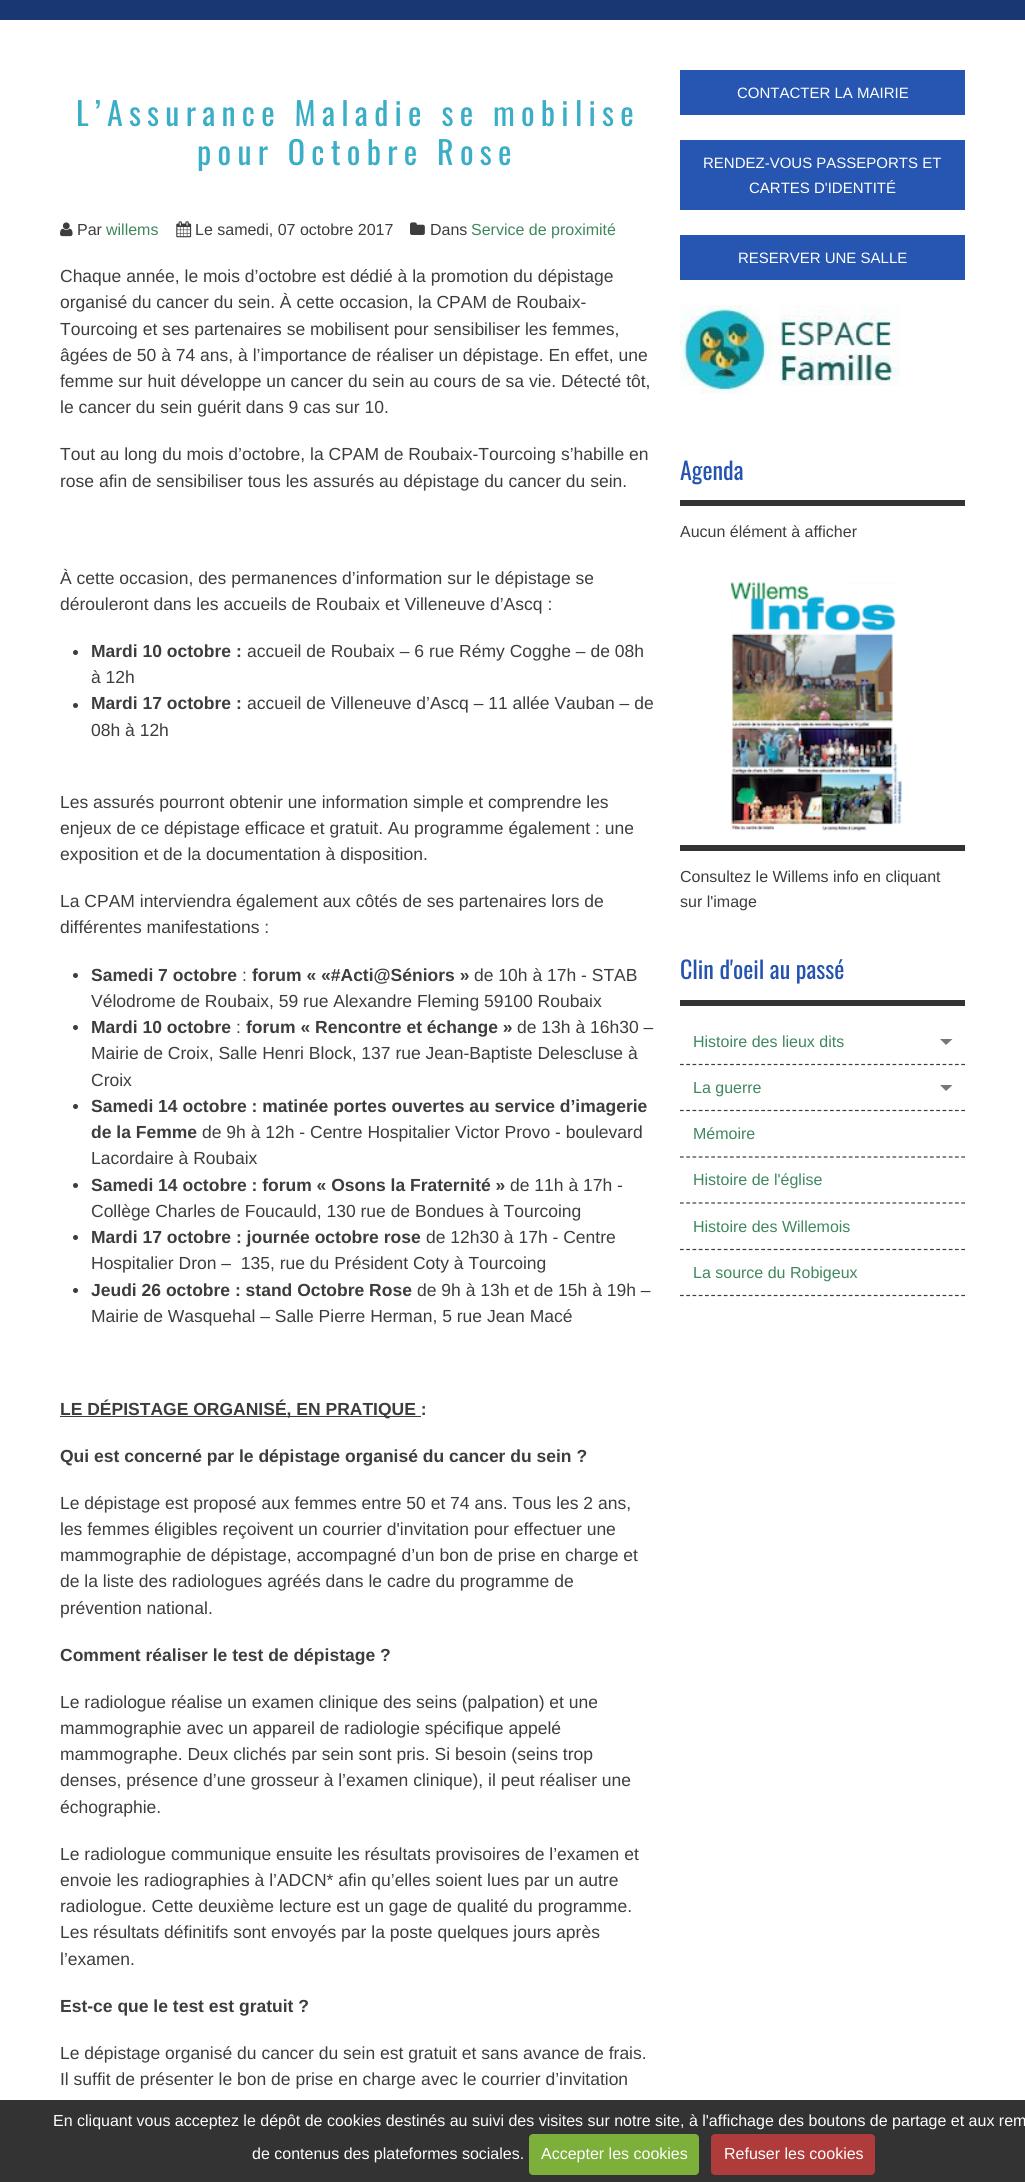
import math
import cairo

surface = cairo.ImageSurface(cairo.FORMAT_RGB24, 1025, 2182)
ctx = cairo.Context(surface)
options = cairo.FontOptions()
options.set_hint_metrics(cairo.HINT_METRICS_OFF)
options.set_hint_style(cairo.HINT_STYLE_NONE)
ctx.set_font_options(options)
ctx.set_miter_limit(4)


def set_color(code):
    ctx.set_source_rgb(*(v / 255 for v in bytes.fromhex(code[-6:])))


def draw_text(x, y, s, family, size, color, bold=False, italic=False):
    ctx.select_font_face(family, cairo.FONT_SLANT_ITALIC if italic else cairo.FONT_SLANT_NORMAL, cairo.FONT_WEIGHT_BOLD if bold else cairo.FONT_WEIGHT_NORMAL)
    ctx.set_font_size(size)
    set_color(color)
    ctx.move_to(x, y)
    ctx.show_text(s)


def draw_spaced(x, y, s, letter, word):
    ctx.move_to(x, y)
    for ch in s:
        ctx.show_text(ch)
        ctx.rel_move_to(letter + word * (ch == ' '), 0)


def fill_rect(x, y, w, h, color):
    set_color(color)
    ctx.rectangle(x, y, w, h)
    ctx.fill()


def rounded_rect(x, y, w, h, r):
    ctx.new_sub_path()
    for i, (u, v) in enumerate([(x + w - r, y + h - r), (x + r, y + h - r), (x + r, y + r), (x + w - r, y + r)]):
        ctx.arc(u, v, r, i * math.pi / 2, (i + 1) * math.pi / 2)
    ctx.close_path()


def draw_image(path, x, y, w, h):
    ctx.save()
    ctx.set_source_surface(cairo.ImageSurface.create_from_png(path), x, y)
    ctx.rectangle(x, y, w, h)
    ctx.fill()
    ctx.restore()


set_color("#ffffff")
ctx.paint()
fill_rect(0, 0, 1025, 20, "#183773")
ctx.select_font_face("Oswald")
ctx.set_font_size(32)
set_color("#3aadc7")
draw_spaced(76, 126, "L’Assurance Maladie se mobilise", 6.25, 0)
draw_spaced(197, 165, "pour Octobre Rose", 6.25, 0)
draw_image("assets/img1.png", 60, 222, 13, 15)
draw_text(77, 235, "Par", "Liberation Sans", 16, "#3d3d3d")
draw_text(106, 235, "willems", "Liberation Sans", 16, "#3f875e")
draw_image("assets/img2.png", 176, 221, 16, 17)
draw_text(195, 235, "Le samedi, 07 octobre 2017", "Liberation Sans", 16, "#3d3d3d")
draw_image("assets/img3.png", 410, 222, 15, 13)
draw_text(430, 235, "Dans", "Liberation Sans", 16, "#3d3d3d")
draw_text(471, 235, "Service de proximité", "Liberation Sans", 16, "#3f875e")
draw_text(60, 282, "Chaque année, le mois d’octobre est dédié à la promotion du dépistage", "Liberation Sans", 17.5, "#3d3d3d")
draw_text(60, 308, "organisé du cancer du sein. À cette occasion, la CPAM de Roubaix-", "Liberation Sans", 17.5, "#3d3d3d")
draw_text(60, 335, "Tourcoing et ses partenaires se mobilisent pour sensibiliser les femmes,", "Liberation Sans", 17.5, "#3d3d3d")
draw_text(60, 361, "âgées de 50 à 74 ans, à l’importance de réaliser un dépistage. En effet, une", "Liberation Sans", 17.5, "#3d3d3d")
draw_text(60, 387, "femme sur huit développe un cancer du sein au cours de sa vie. Détecté tôt,", "Liberation Sans", 17.5, "#3d3d3d")
draw_text(60, 413, "le cancer du sein guérit dans 9 cas sur 10.", "Liberation Sans", 17.5, "#3d3d3d")
draw_text(60, 460, "Tout au long du mois d’octobre, la CPAM de Roubaix-Tourcoing s’habille en", "Liberation Sans", 17.5, "#3d3d3d")
draw_text(60, 487, "rose afin de sensibiliser tous les assurés au dépistage du cancer du sein.", "Liberation Sans", 17.5, "#3d3d3d")
draw_text(60, 584, "À cette occasion, des permanences d’information sur le dépistage se", "Liberation Sans", 17.5, "#3d3d3d")
draw_text(60, 610, "dérouleront dans les accueils de Roubaix et Villeneuve d’Ascq :", "Liberation Sans", 17.5, "#3d3d3d")
ctx.new_path()
ctx.arc(75.5, 652.5, 2.5, 0, 2 * math.pi)
ctx.fill()
draw_text(91, 657, "Mardi 10 octobre :", "Liberation Sans", 17.5, "#3d3d3d", bold=True)
draw_text(247, 657, "accueil de Roubaix – 6 rue Rémy Cogghe – de 08h", "Liberation Sans", 17.5, "#3d3d3d")
draw_text(91, 683, "à 12h", "Liberation Sans", 17.5, "#3d3d3d")
ctx.new_path()
ctx.arc(75.5, 705.5, 2.5, 0, 2 * math.pi)
ctx.fill()
draw_text(91, 709, "Mardi 17 octobre :", "Liberation Sans", 17.5, "#3d3d3d", bold=True)
draw_text(247, 709, "accueil de Villeneuve d’Ascq – 11 allée Vauban – de", "Liberation Sans", 17.5, "#3d3d3d")
draw_text(91, 736, "08h à 12h", "Liberation Sans", 17.5, "#3d3d3d")
draw_text(60, 808, "Les assurés pourront obtenir une information simple et comprendre les", "Liberation Sans", 17.5, "#3d3d3d")
draw_text(60, 834, "enjeux de ce dépistage efficace et gratuit. Au programme également : une", "Liberation Sans", 17.5, "#3d3d3d")
draw_text(60, 860, "exposition et de la documentation à disposition.", "Liberation Sans", 17.5, "#3d3d3d")
draw_text(60, 907, "La CPAM interviendra également aux côtés de ses partenaires lors de", "Liberation Sans", 17.5, "#3d3d3d")
draw_text(60, 933, "différentes manifestations :", "Liberation Sans", 17.5, "#3d3d3d")
ctx.new_path()
ctx.arc(75.5, 975.5, 2.5, 0, 2 * math.pi)
ctx.fill()
draw_text(91, 981, "Samedi 7 octobre", "Liberation Sans", 17.5, "#3d3d3d", bold=True)
draw_text(242, 981, ":", "Liberation Sans", 17.5, "#3d3d3d")
draw_text(252, 981, "forum « «#Acti@Séniors »", "Liberation Sans", 17.5, "#3d3d3d", bold=True)
draw_text(474, 981, "de 10h à 17h - STAB", "Liberation Sans", 17.5, "#3d3d3d")
draw_text(91, 1007, "Vélodrome de Roubaix, 59 rue Alexandre Fleming 59100 Roubaix", "Liberation Sans", 17.5, "#3d3d3d")
ctx.new_path()
ctx.arc(75.5, 1027.5, 2.5, 0, 2 * math.pi)
ctx.fill()
draw_text(91, 1033, "Mardi 10 octobre", "Liberation Sans", 17.5, "#3d3d3d", bold=True)
draw_text(236, 1033, ":", "Liberation Sans", 17.5, "#3d3d3d")
draw_text(246, 1033, "forum « Rencontre et échange »", "Liberation Sans", 17.5, "#3d3d3d", bold=True)
draw_text(517, 1033, "de 13h à 16h30 –", "Liberation Sans", 17.5, "#3d3d3d")
draw_text(91, 1059, "Mairie de Croix, Salle Henri Block, 137 rue Jean-Baptiste Delescluse à", "Liberation Sans", 17.5, "#3d3d3d")
draw_text(91, 1086, "Croix", "Liberation Sans", 17.5, "#3d3d3d")
ctx.new_path()
ctx.arc(75.5, 1106.5, 2.5, 0, 2 * math.pi)
ctx.fill()
draw_text(91, 1112, "Samedi 14 octobre : matinée portes ouvertes au service d’imagerie", "Liberation Sans", 17.5, "#3d3d3d", bold=True)
draw_text(91, 1138, "de la Femme", "Liberation Sans", 17.5, "#3d3d3d", bold=True)
draw_text(202, 1138, "de 9h à 12h - Centre Hospitalier Victor Provo - boulevard", "Liberation Sans", 17.5, "#3d3d3d")
draw_text(91, 1164, "Lacordaire à Roubaix", "Liberation Sans", 17.5, "#3d3d3d")
ctx.new_path()
ctx.arc(75.5, 1185.5, 2.5, 0, 2 * math.pi)
ctx.fill()
draw_text(91, 1191, "Samedi 14 octobre : forum « Osons la Fraternité »", "Liberation Sans", 17.5, "#3d3d3d", bold=True)
draw_text(510, 1191, "de 11h à 17h -", "Liberation Sans", 17.5, "#3d3d3d")
draw_text(91, 1217, "Collège Charles de Foucauld, 130 rue de Bondues à Tourcoing", "Liberation Sans", 17.5, "#3d3d3d")
ctx.new_path()
ctx.arc(75.5, 1237.5, 2.5, 0, 2 * math.pi)
ctx.fill()
draw_text(91, 1243, "Mardi 17 octobre : journée octobre rose", "Liberation Sans", 17.5, "#3d3d3d", bold=True)
draw_text(426, 1243, "de 12h30 à 17h - Centre", "Liberation Sans", 17.5, "#3d3d3d")
draw_text(91, 1269, "Hospitalier Dron –  135, rue du Président Coty à Tourcoing", "Liberation Sans", 17.5, "#3d3d3d")
ctx.new_path()
ctx.arc(75.5, 1290.5, 2.5, 0, 2 * math.pi)
ctx.fill()
draw_text(91, 1296, "Jeudi 26 octobre : stand Octobre Rose", "Liberation Sans", 17.5, "#3d3d3d", bold=True)
draw_text(417, 1296, "de 9h à 13h et de 15h à 19h –", "Liberation Sans", 17.5, "#3d3d3d")
draw_text(91, 1322, "Mairie de Wasquehal – Salle Pierre Herman, 5 rue Jean Macé", "Liberation Sans", 17.5, "#3d3d3d")
fill_rect(60, 1416, 361, 1, "#3d3d3d")
draw_text(60, 1415, "LE DÉPISTAGE ORGANISÉ, EN PRATIQUE :", "Liberation Sans", 17.5, "#3d3d3d", bold=True)
draw_text(60, 1462, "Qui est concerné par le dépistage organisé du cancer du sein ?", "Liberation Sans", 17.5, "#3d3d3d", bold=True)
draw_text(60, 1509, "Le dépistage est proposé aux femmes entre 50 et 74 ans. Tous les 2 ans,", "Liberation Sans", 17.5, "#3d3d3d")
draw_text(60, 1535, "les femmes éligibles reçoivent un courrier d'invitation pour effectuer une", "Liberation Sans", 17.5, "#3d3d3d")
draw_text(60, 1561, "mammographie de dépistage, accompagné d’un bon de prise en charge et", "Liberation Sans", 17.5, "#3d3d3d")
draw_text(60, 1587, "de la liste des radiologues agréés dans le cadre du programme de", "Liberation Sans", 17.5, "#3d3d3d")
draw_text(60, 1614, "prévention national.", "Liberation Sans", 17.5, "#3d3d3d")
draw_text(60, 1661, "Comment réaliser le test de dépistage ?", "Liberation Sans", 17.5, "#3d3d3d", bold=True)
draw_text(60, 1708, "Le radiologue réalise un examen clinique des seins (palpation) et une", "Liberation Sans", 17.5, "#3d3d3d")
draw_text(60, 1734, "mammographie avec un appareil de radiologie spécifique appelé", "Liberation Sans", 17.5, "#3d3d3d")
draw_text(60, 1760, "mammographe. Deux clichés par sein sont pris. Si besoin (seins trop", "Liberation Sans", 17.5, "#3d3d3d")
draw_text(60, 1786, "denses, présence d’une grosseur à l’examen clinique), il peut réaliser une", "Liberation Sans", 17.5, "#3d3d3d")
draw_text(60, 1813, "échographie.", "Liberation Sans", 17.5, "#3d3d3d")
draw_text(60, 1860, "Le radiologue communique ensuite les résultats provisoires de l’examen et", "Liberation Sans", 17.5, "#3d3d3d")
draw_text(60, 1886, "envoie les radiographies à l’ADCN* afin qu’elles soient lues par un autre", "Liberation Sans", 17.5, "#3d3d3d")
draw_text(60, 1912, "radiologue. Cette deuxième lecture est un gage de qualité du programme.", "Liberation Sans", 17.5, "#3d3d3d")
draw_text(60, 1938, "Les résultats définitifs sont envoyés par la poste quelques jours après", "Liberation Sans", 17.5, "#3d3d3d")
draw_text(60, 1965, "l’examen.", "Liberation Sans", 17.5, "#3d3d3d")
draw_text(60, 2012, "Est-ce que le test est gratuit ?", "Liberation Sans", 17.5, "#3d3d3d", bold=True)
draw_text(60, 2059, "Le dépistage organisé du cancer du sein est gratuit et sans avance de frais.", "Liberation Sans", 17.5, "#3d3d3d")
draw_text(60, 2085, "Il suffit de présenter le bon de prise en charge avec le courrier d’invitation", "Liberation Sans", 17.5, "#3d3d3d")
fill_rect(680, 70, 285, 45, "#2656b1")
draw_text(737, 98, "CONTACTER LA MAIRIE", "Liberation Sans", 15, "#ffffff")
fill_rect(680, 140, 285, 70, "#2656b1")
draw_text(703, 168, "RENDEZ-VOUS PASSEPORTS ET", "Liberation Sans", 15, "#ffffff")
draw_text(749, 193, "CARTES D'IDENTITÉ", "Liberation Sans", 15, "#ffffff")
fill_rect(680, 235, 285, 45, "#2656b1")
draw_text(738, 263, "RESERVER UNE SALLE", "Liberation Sans", 15, "#ffffff")
draw_image("assets/img4.png", 680, 305, 220, 89)
fill_rect(680, 500, 285, 6, "#333333")
draw_text(680, 480, "Agenda", "Oswald", 24, "#2454b0")
draw_text(680, 537, "Aucun élément à afficher", "Liberation Sans", 16, "#3d3d3d")
fill_rect(680, 845, 285, 6, "#333333")
draw_image("assets/img5.png", 731, 582, 172, 250)
draw_text(680, 882, "Consultez le Willems info en cliquant", "Liberation Sans", 16, "#3d3d3d")
draw_text(680, 907, "sur l'image", "Liberation Sans", 16, "#3d3d3d")
fill_rect(680, 1000, 285, 6, "#333333")
draw_text(680, 979, "Clin d'oeil au passé", "Oswald", 24, "#2454b0")
ctx.new_path()
ctx.move_to(680, 1064.5)
ctx.line_to(965, 1064.5)
set_color("#3d3d3d")
ctx.set_line_width(1.2)
ctx.set_dash([3.75, 2.5])
ctx.stroke()
draw_text(693, 1047, "Histoire des lieux dits", "Liberation Sans", 16, "#3f875e")
set_color("#777777")
ctx.new_path()
ctx.move_to(940, 1039)
ctx.line_to(952.5, 1039)
ctx.line_to(946, 1045)
ctx.close_path()
ctx.fill()
ctx.new_path()
ctx.move_to(680, 1110.5)
ctx.line_to(965, 1110.5)
set_color("#3d3d3d")
ctx.stroke()
draw_text(693, 1093, "La guerre", "Liberation Sans", 16, "#3f875e")
set_color("#777777")
ctx.new_path()
ctx.move_to(940, 1085)
ctx.line_to(952.5, 1085)
ctx.line_to(946, 1091)
ctx.close_path()
ctx.fill()
ctx.new_path()
ctx.move_to(680, 1157)
ctx.line_to(965, 1157)
set_color("#3d3d3d")
ctx.stroke()
draw_text(693, 1139, "Mémoire", "Liberation Sans", 16, "#3f875e")
ctx.new_path()
ctx.move_to(680, 1203)
ctx.line_to(965, 1203)
set_color("#3d3d3d")
ctx.stroke()
draw_text(693, 1185, "Histoire de l'église", "Liberation Sans", 16, "#3f875e")
ctx.new_path()
ctx.move_to(680, 1249.5)
ctx.line_to(965, 1249.5)
set_color("#3d3d3d")
ctx.stroke()
draw_text(693, 1232, "Histoire des Willemois", "Liberation Sans", 16, "#3f875e")
ctx.new_path()
ctx.move_to(680, 1295.5)
ctx.line_to(965, 1295.5)
set_color("#3d3d3d")
ctx.stroke()
draw_text(693, 1278, "La source du Robigeux", "Liberation Sans", 16, "#3f875e")
ctx.set_source_rgba(0, 0, 0, 0.8)
ctx.rectangle(0, 2100, 1025, 82)
ctx.fill()
draw_text(53, 2126, "En cliquant vous acceptez le dépôt de cookies destinés au suivi des visites sur notre site, à l'affichage des boutons de partage et aux rem", "Liberation Sans", 16, "#ffffff")
draw_text(252, 2159, "de contenus des plateformes sociales.", "Liberation Sans", 16, "#ffffff")
set_color("#7daf3b")
rounded_rect(529, 2134, 170, 41, 4)
ctx.fill()
draw_text(541, 2159, "Accepter les cookies", "Liberation Sans", 16, "#ffffff")
set_color("#af3b3b")
rounded_rect(711, 2134, 164, 41, 4)
ctx.fill()
draw_text(724, 2159, "Refuser les cookies", "Liberation Sans", 16, "#ffffff")
surface.write_to_png("output.png")
